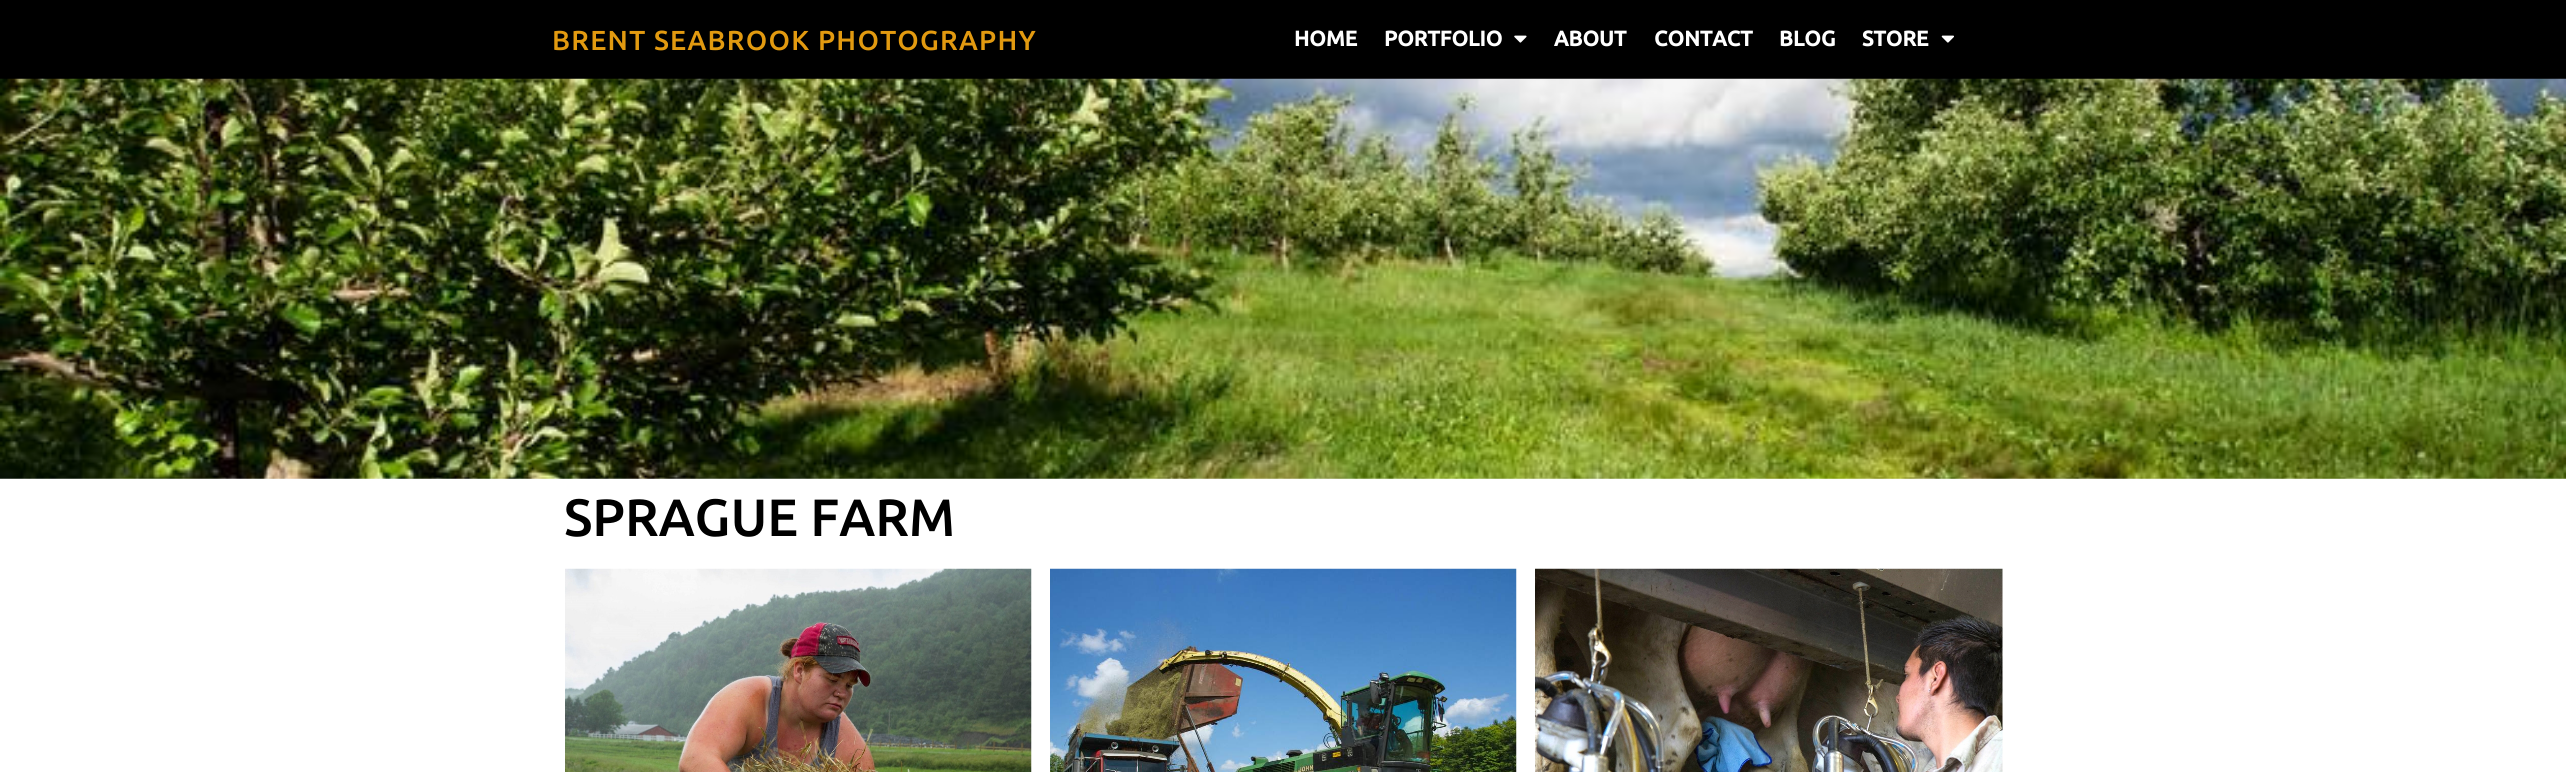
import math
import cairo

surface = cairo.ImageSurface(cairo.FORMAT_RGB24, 2566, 772)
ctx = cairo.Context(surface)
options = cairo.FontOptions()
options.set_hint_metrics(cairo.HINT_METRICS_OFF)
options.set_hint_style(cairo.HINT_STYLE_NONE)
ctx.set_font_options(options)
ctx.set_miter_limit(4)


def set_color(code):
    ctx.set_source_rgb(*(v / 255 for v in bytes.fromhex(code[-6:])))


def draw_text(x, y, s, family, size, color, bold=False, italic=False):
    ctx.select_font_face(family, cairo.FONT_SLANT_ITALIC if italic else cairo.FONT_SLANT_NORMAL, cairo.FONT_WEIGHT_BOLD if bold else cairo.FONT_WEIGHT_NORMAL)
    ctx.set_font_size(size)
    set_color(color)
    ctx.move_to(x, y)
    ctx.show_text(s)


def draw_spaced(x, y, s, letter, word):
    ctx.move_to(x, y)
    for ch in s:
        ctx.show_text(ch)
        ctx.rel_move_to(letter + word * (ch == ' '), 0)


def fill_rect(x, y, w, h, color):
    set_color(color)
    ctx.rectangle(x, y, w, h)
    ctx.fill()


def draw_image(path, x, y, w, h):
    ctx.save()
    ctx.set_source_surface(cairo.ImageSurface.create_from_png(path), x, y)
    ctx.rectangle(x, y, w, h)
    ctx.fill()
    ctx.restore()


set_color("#ffffff")
ctx.paint()
fill_rect(0, 0, 2566, 79, "#000000")
ctx.select_font_face("Ubuntu Medium")
ctx.set_font_size(27.5)
set_color("#e29a10")
draw_spaced(552, 50, "BRENT SEABROOK PHOTOGRAPHY", 1.25, 0)
draw_text(1294, 46, "HOME", "Ubuntu", 21.25, "#ffffff", bold=True)
draw_text(1384, 46, "PORTFOLIO", "Ubuntu", 21.25, "#ffffff", bold=True)
draw_image("assets/img1.png", 1514, 35, 13, 8)
draw_text(1554, 46, "ABOUT", "Ubuntu", 21.25, "#ffffff", bold=True)
draw_text(1654, 46, "CONTACT", "Ubuntu", 21.25, "#ffffff", bold=True)
draw_text(1779, 46, "BLOG", "Ubuntu", 21.25, "#ffffff", bold=True)
draw_text(1862, 46, "STORE", "Ubuntu", 21.25, "#ffffff", bold=True)
draw_image("assets/img2.png", 1941, 35, 13, 8)
draw_image("assets/img3.png", 0, 78, 2566, 401)
draw_text(564, 536, "SPRAGUE FARM", "Ubuntu Medium", 52.5, "#000000")
draw_image("assets/img4.png", 565, 568, 467, 204)
draw_image("assets/img5.png", 1050, 568, 467, 204)
draw_image("assets/img6.png", 1535, 568, 468, 204)
surface.write_to_png("output.png")
